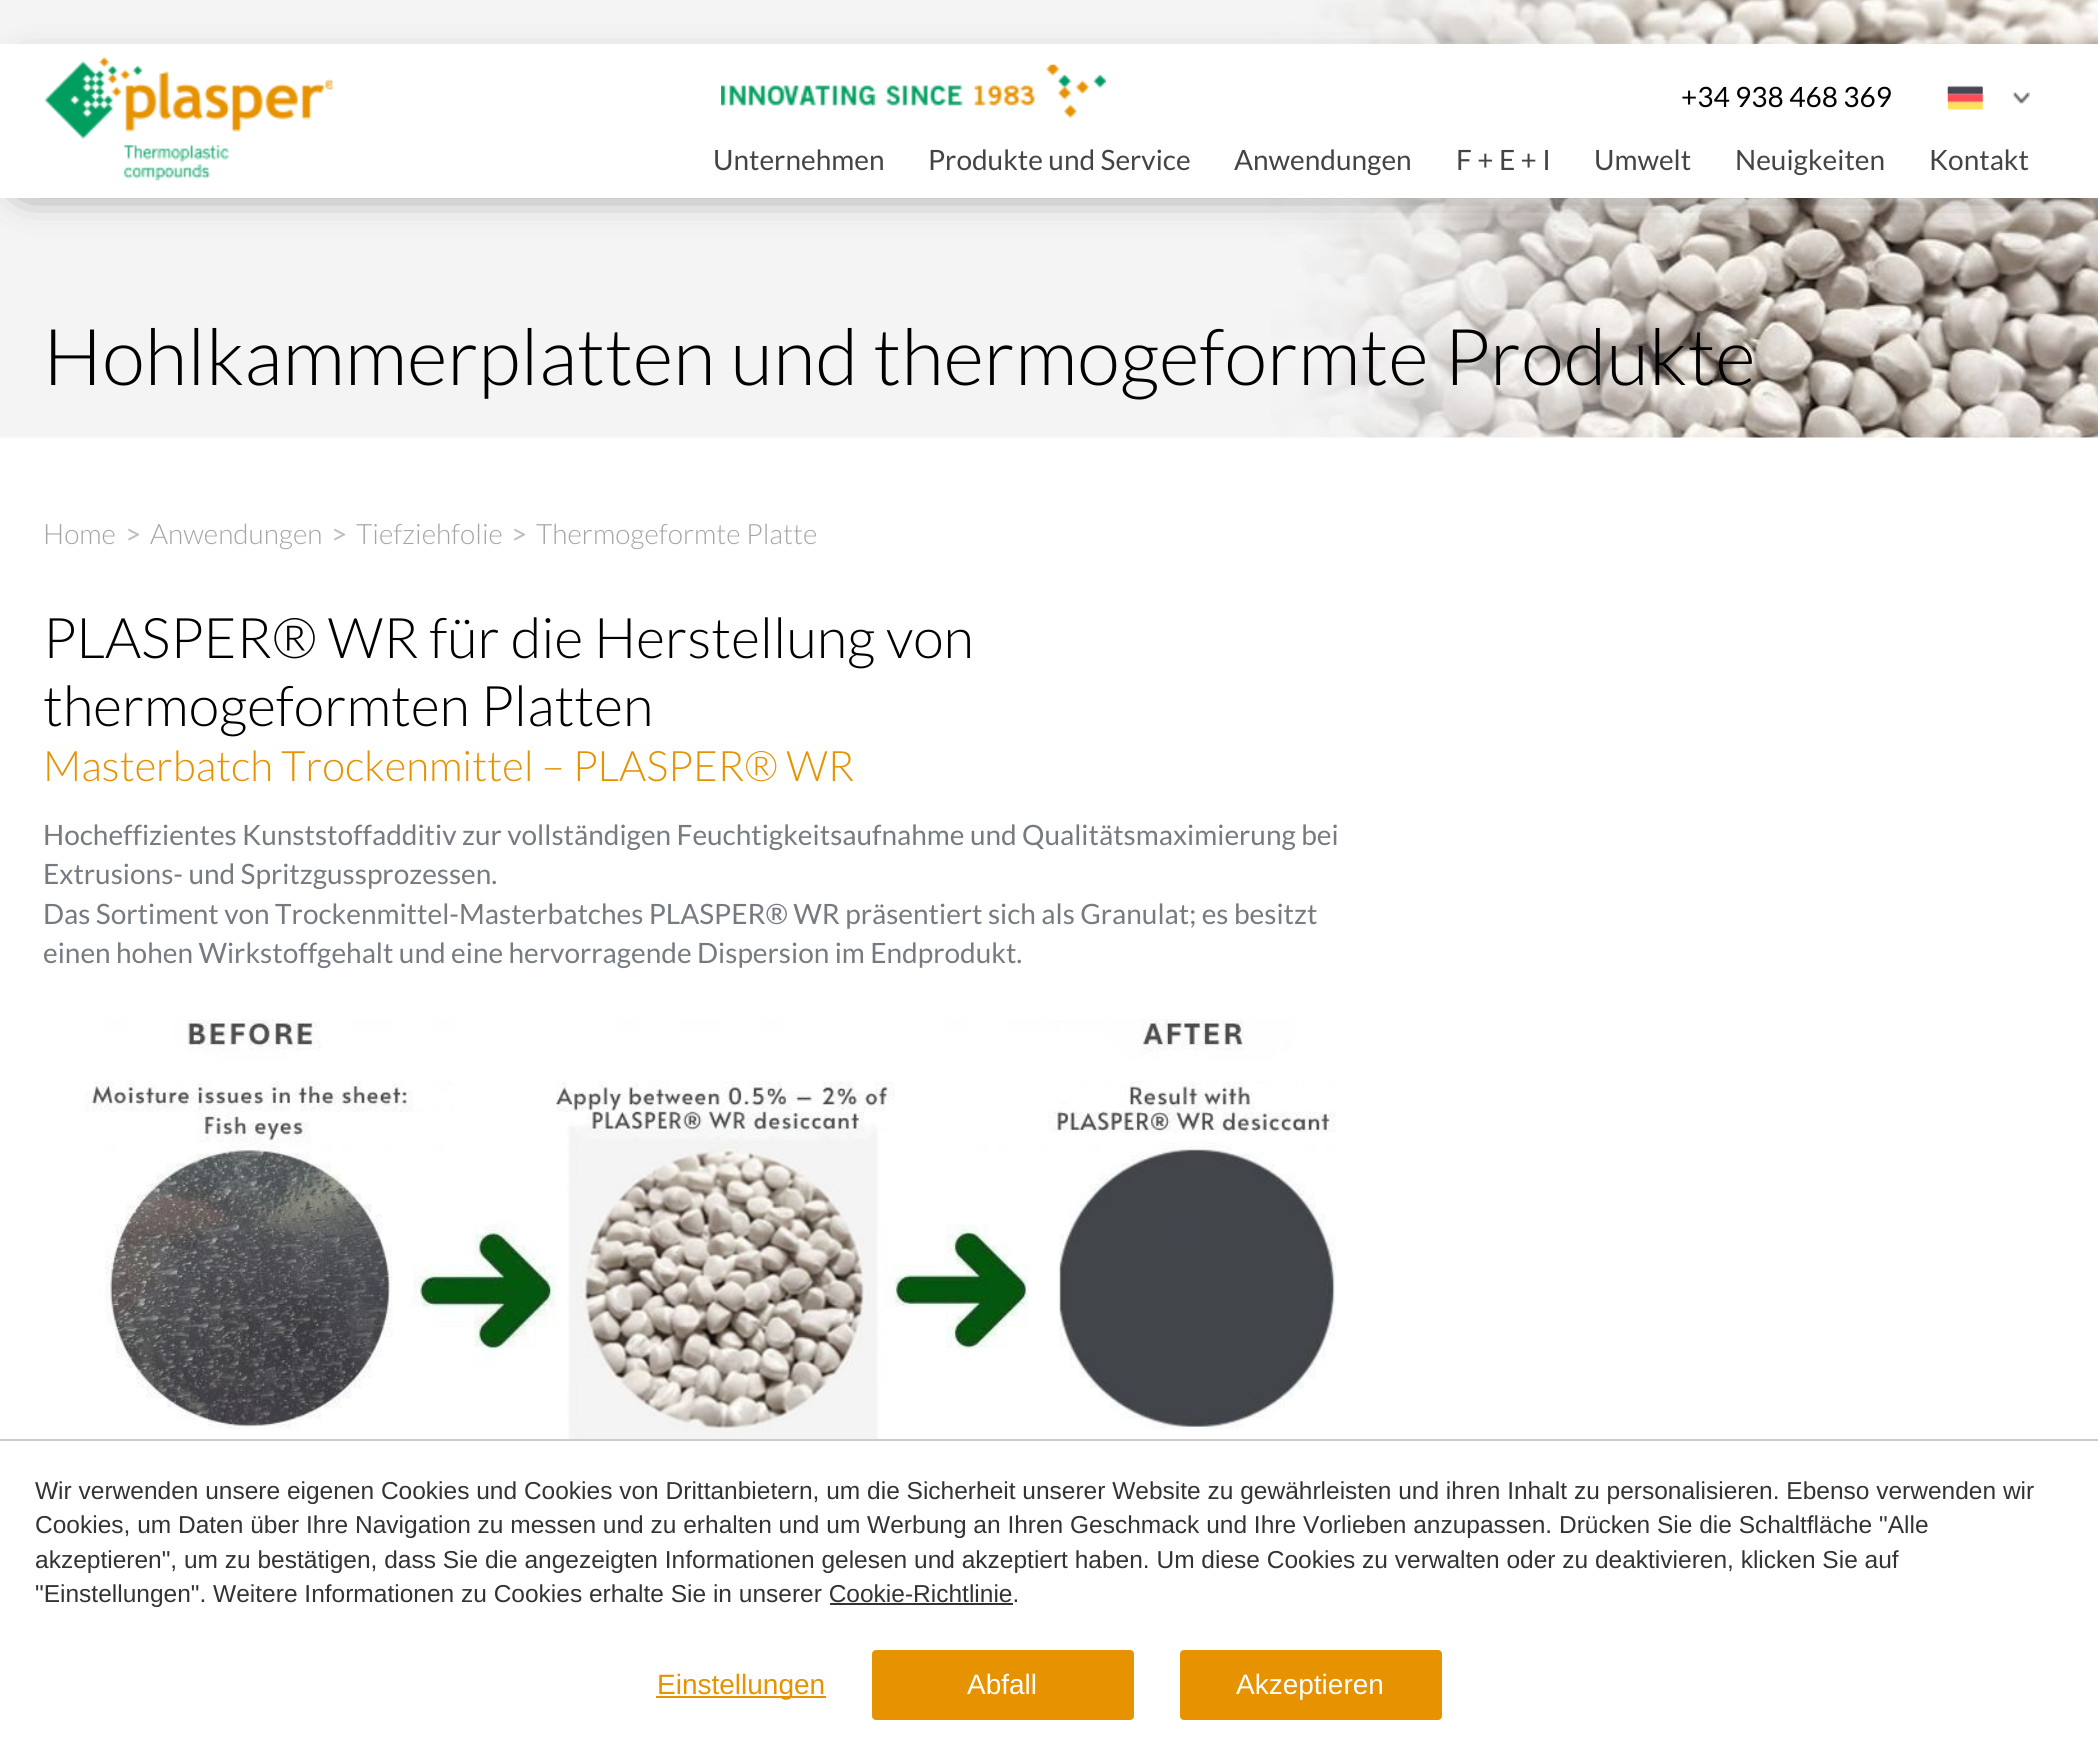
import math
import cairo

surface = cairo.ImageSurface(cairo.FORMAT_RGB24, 2098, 1762)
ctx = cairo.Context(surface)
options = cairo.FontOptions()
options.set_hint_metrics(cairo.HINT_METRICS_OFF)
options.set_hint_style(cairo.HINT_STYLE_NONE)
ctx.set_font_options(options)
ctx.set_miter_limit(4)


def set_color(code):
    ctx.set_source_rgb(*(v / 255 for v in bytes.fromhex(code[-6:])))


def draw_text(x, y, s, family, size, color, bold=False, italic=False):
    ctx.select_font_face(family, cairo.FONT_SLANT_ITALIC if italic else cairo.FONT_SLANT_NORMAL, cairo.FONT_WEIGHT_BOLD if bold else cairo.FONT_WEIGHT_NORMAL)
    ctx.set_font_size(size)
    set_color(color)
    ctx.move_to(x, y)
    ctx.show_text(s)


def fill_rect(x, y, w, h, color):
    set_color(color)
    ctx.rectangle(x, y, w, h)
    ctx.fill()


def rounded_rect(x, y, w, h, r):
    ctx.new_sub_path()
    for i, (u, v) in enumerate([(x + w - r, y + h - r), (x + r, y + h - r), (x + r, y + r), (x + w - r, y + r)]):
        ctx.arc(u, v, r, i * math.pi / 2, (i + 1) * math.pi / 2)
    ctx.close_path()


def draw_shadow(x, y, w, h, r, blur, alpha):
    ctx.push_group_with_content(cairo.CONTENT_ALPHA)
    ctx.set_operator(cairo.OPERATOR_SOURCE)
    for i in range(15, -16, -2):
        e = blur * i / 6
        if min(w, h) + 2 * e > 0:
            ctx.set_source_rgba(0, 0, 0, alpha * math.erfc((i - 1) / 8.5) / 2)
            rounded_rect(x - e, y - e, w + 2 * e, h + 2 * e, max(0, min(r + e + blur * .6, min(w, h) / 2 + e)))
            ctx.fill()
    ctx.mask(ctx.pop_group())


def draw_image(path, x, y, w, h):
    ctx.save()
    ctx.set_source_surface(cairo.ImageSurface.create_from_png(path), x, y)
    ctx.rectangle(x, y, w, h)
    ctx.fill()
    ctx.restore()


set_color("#ffffff")
ctx.paint()
draw_image("assets/img5.png", 0, 0, 2098, 438)
set_color("#252525")
draw_shadow(26, 79, 2046, 101, 0, 22, 1)
fill_rect(0, 44, 2098, 154, "#ffffff")
draw_image("assets/img1.png", 45, 57, 288, 124)
draw_image("assets/img2.png", 721, 64, 385, 54)
draw_text(1681, 107, "+34 938 468 369", "Lato", 28, "#000000")
draw_image("assets/img3.png", 2012, 92, 18, 12)
draw_image("assets/img4.png", 1947, 85, 36, 26)
draw_text(713, 170, "Unternehmen", "Lato", 28, "#444444")
draw_text(928, 170, "Produkte und Service", "Lato", 28, "#444444")
draw_text(1234, 170, "Anwendungen", "Lato", 28, "#444444")
draw_text(1456, 170, "F + E + I", "Lato", 28, "#444444")
draw_text(1594, 170, "Umwelt", "Lato", 28, "#444444")
draw_text(1735, 170, "Neuigkeiten", "Lato", 28, "#444444")
draw_text(1929, 170, "Kontakt", "Lato", 28, "#444444")
draw_text(43, 385, "Hohlkammerplatten und thermogeformte Produkte", "Lato Light", 78.4, "#000000")
draw_text(43, 544, "Home", "Lato Light", 28, "#a4a4a4")
draw_text(125, 544, ">", "Lato", 28, "#bdbdbd")
draw_text(150, 544, "Anwendungen", "Lato Light", 28, "#a4a4a4")
draw_text(331, 544, ">", "Lato", 28, "#bdbdbd")
draw_text(356, 544, "Tiefziehfolie", "Lato Light", 28, "#a4a4a4")
draw_text(511, 544, ">", "Lato", 28, "#bdbdbd")
draw_text(536, 544, "Thermogeformte Platte", "Lato Light", 28, "#a4a4a4")
draw_text(43, 658, "PLASPER® WR für die Herstellung von", "Lato Light", 56, "#000000")
draw_text(43, 726, "thermogeformten Platten", "Lato Light", 56, "#000000")
draw_text(43, 781, "Masterbatch Trockenmittel – PLASPER® WR", "Lato Light", 42, "#e69201")
draw_text(43, 845, "Hocheffizientes Kunststoffadditiv zur vollständigen Feuchtigkeitsaufnahme und Qualitätsmaximierung bei", "Lato", 28, "#757b81")
draw_text(43, 884, "Extrusions- und Spritzgussprozessen.", "Lato", 28, "#757b81")
draw_text(43, 924, "Das Sortiment von Trockenmittel-Masterbatches PLASPER® WR präsentiert sich als Granulat; es besitzt", "Lato", 28, "#757b81")
draw_text(43, 963, "einen hohen Wirkstoffgehalt und eine hervorragende Dispersion im Endprodukt.", "Lato", 28, "#757b81")
draw_image("assets/img6.png", 85, 1019, 1251, 420)
fill_rect(0, 1439, 2098, 2, "#cccccc")
draw_text(35, 1499, "Wir verwenden unsere eigenen Cookies und Cookies von Drittanbietern, um die Sicherheit unserer Website zu gewährleisten und ihren Inhalt zu personalisieren. Ebenso verwenden wir", "Liberation Sans", 24.5, "#333333")
draw_text(35, 1533, "Cookies, um Daten über Ihre Navigation zu messen und zu erhalten und um Werbung an Ihren Geschmack und Ihre Vorlieben anzupassen. Drücken Sie die Schaltfläche \"Alle", "Liberation Sans", 24.5, "#333333")
draw_text(35, 1568, "akzeptieren\", um zu bestätigen, dass Sie die angezeigten Informationen gelesen und akzeptiert haben. Um diese Cookies zu verwalten oder zu deaktivieren, klicken Sie auf", "Liberation Sans", 24.5, "#333333")
draw_text(35, 1602, "\"Einstellungen\". Weitere Informationen zu Cookies erhalte Sie in unserer Cookie-Richtlinie.", "Liberation Sans", 24.5, "#333333")
fill_rect(830, 1603, 183, 2, "#333333")
fill_rect(656, 1696, 170, 2, "#e79201")
draw_text(657, 1694, "Einstellungen", "Liberation Sans", 28, "#e69201")
set_color("#e79201")
rounded_rect(873, 1651, 260, 68, 3)
ctx.fill_preserve()
ctx.stroke()
draw_text(967, 1694, "Abfall", "Liberation Sans", 28, "#ffffff")
set_color("#e79201")
rounded_rect(1181, 1651, 260, 68, 3)
ctx.fill_preserve()
ctx.stroke()
draw_text(1236, 1694, "Akzeptieren", "Liberation Sans", 28, "#ffffff")
surface.write_to_png("output.png")
